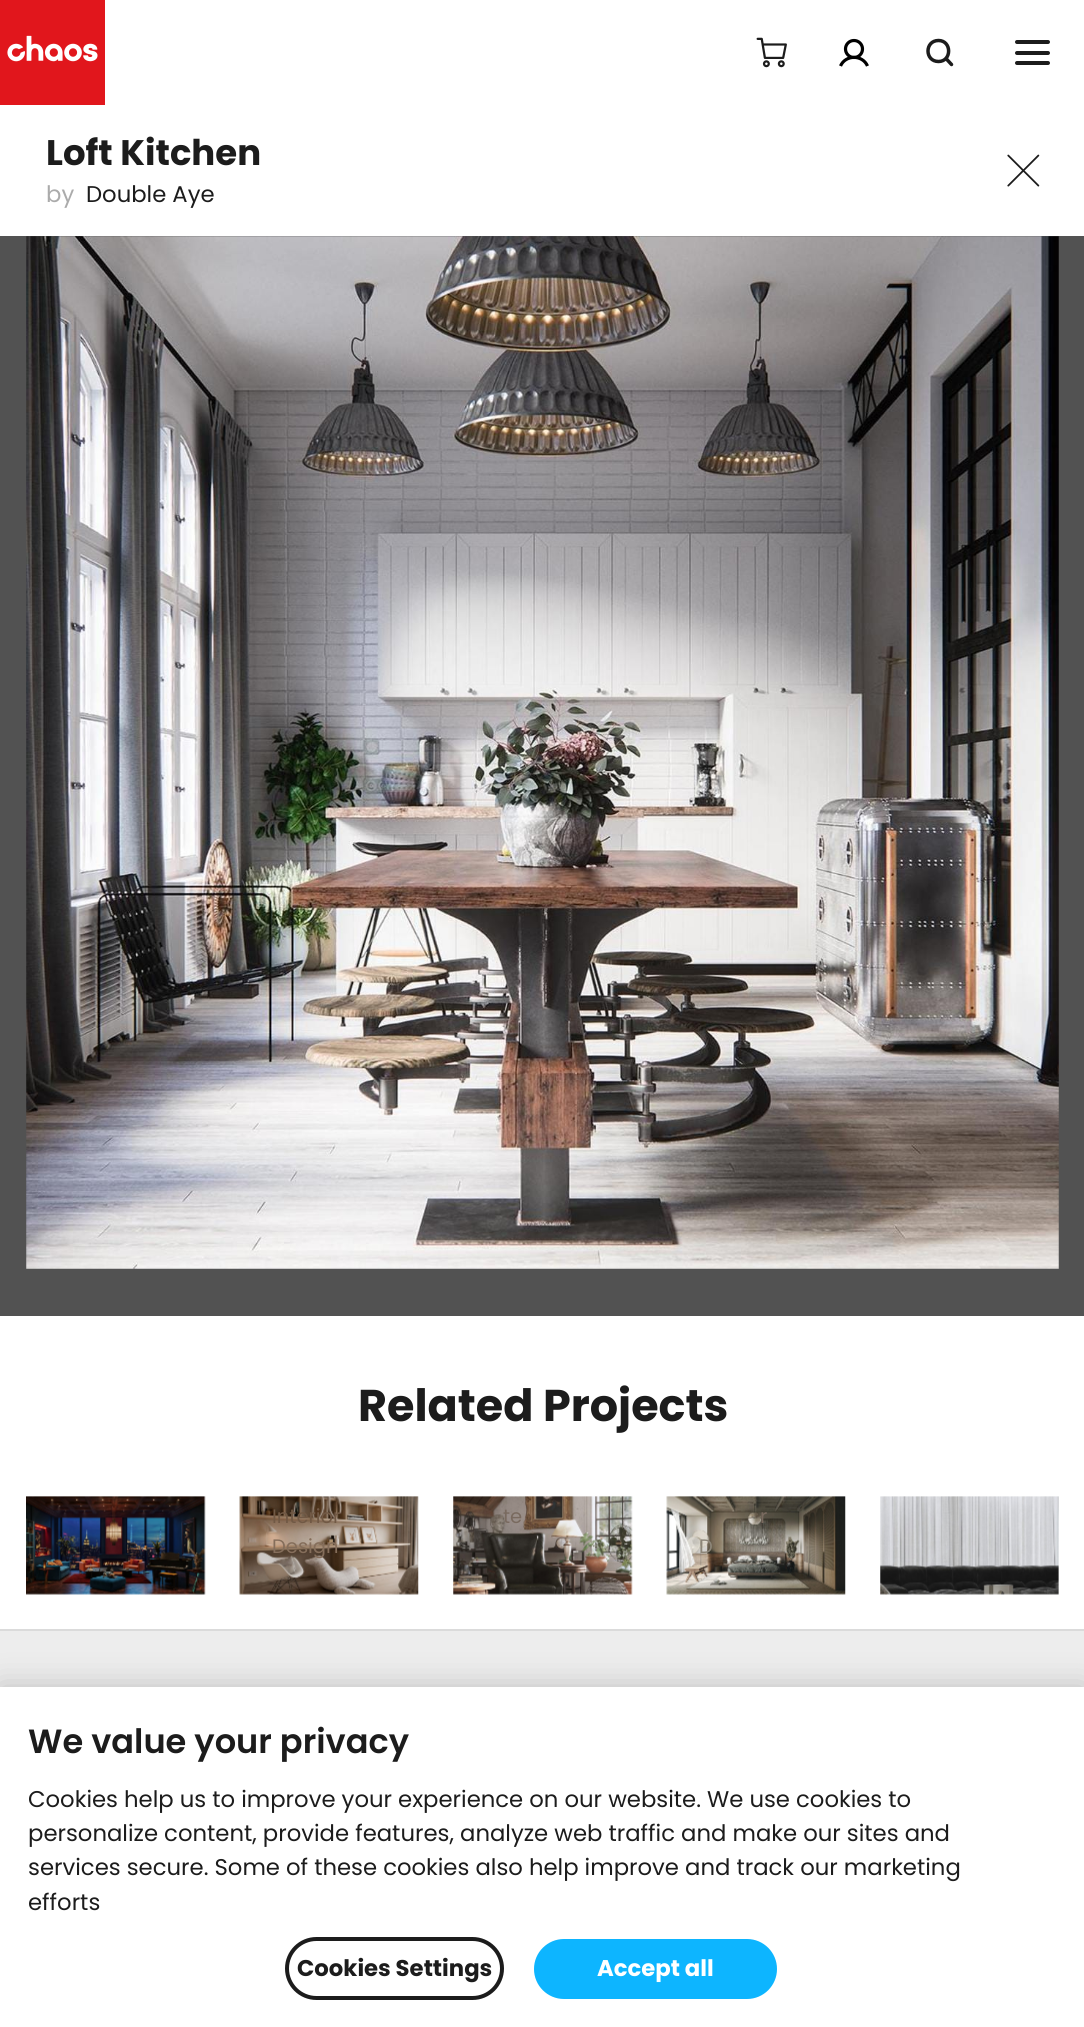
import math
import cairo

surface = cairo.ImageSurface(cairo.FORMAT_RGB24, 1084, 2027)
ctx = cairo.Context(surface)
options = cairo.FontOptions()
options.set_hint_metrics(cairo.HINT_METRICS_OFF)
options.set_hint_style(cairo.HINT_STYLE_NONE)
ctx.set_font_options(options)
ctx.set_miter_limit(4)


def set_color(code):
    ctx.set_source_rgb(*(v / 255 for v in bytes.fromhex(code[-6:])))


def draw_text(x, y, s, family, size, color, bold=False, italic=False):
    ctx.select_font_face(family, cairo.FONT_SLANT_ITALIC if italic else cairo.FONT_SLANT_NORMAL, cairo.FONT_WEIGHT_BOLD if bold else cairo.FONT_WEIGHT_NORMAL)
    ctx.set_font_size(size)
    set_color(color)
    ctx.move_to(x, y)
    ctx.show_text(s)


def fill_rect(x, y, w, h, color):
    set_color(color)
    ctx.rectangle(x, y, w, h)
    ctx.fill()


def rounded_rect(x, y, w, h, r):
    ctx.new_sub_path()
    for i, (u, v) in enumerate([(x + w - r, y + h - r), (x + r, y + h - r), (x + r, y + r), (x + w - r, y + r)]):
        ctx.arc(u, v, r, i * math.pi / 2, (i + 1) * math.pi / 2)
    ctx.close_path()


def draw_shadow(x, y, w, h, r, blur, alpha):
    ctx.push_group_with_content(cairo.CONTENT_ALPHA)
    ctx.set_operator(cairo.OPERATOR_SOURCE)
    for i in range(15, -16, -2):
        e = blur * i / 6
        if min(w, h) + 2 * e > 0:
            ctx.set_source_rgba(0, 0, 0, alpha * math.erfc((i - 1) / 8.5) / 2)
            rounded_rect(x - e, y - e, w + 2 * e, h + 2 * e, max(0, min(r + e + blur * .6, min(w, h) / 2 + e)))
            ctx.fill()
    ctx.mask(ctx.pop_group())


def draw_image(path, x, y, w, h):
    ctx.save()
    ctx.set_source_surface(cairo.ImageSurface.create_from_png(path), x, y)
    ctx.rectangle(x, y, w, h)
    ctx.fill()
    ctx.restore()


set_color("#ffffff")
ctx.paint()
draw_image("assets/img1.png", 0, 0, 105, 105)
draw_image("assets/img2.png", 756, 37, 31, 31)
ctx.new_path()
ctx.move_to(867.5, 66)
ctx.curve_to(862.5, 54.5, 845.5, 54.5, 840.5, 66)
set_color("#000000")
ctx.set_line_width(3.2)
ctx.stroke()
ctx.arc(854, 49, 8.5, 0, 2 * math.pi)
ctx.stroke()
ctx.new_path()
ctx.move_to(938.5, 61.5)
ctx.curve_to(952, 61.5, 952, 40.5, 938.5, 40.5)
ctx.curve_to(924.5, 40.5, 924.5, 61.5, 938.5, 61.5)
ctx.close_path()
ctx.move_to(951.5, 64.5)
ctx.line_to(946, 58.5)
set_color("#1c1c1c")
ctx.set_line_width(3.5)
ctx.set_line_cap(cairo.LINE_CAP_ROUND)
ctx.set_line_join(cairo.LINE_JOIN_ROUND)
ctx.stroke()
rounded_rect(1015, 51, 35, 4, 2)
ctx.fill()
rounded_rect(1015, 40, 35, 4, 2)
ctx.fill()
rounded_rect(1015, 61, 35, 4, 2)
ctx.fill()
fill_rect(0, 236, 1084, 1080, "#525252")
draw_text(46, 165, "Loft Kitchen", "Poppins", 35.5, "#1c1c1c", bold=True)
draw_text(46, 202, "by", "Poppins", 22.75, "#ababab")
draw_text(86, 202, "Double Aye", "Poppins", 22.75, "#1c1c1c")
draw_image("assets/img3.png", 1007, 154, 33, 33)
draw_image("assets/img4.png", 26, 236, 1033, 1033)
draw_text(358, 1421, "Related Projects", "Poppins", 44.5, "#1c1c1c", bold=True)
draw_image("assets/img5.png", 26, 1496, 180, 99)
draw_image("assets/img6.png", 239, 1496, 180, 99)
draw_text(272, 1523, "Interior", "Poppins", 19.5, "#715945")
draw_text(272, 1553, "Design", "Poppins", 19.5, "#856e5b")
draw_image("assets/img7.png", 453, 1496, 180, 99)
draw_text(503, 1523, "te", "Poppins", 19.5, "#796a5f")
draw_image("assets/img8.png", 666, 1496, 180, 99)
draw_text(760, 1523, "r", "Poppins", 19.5, "#796a5f")
draw_text(699, 1553, "D", "Poppins", 19.5, "#8c8578")
draw_image("assets/img9.png", 880, 1496, 179, 99)
fill_rect(0, 1631, 1084, 56, "#ededed")
fill_rect(0, 1629, 1084, 2, "#dbdbdb")
set_color("#000000")
draw_shadow(0, 1687, 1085, 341, 0, 16, 0.2)
fill_rect(0, 1687, 1084, 340, "#ffffff")
draw_text(28, 1753, "We value your privacy", "Poppins SemiBold", 33.6, "#1c1c1c")
draw_text(28, 1807, "Cookies help us to improve your experience on our website. We use cookies to", "Poppins", 22.75, "#1c1c1c")
draw_text(28, 1841, "personalize content, provide features, analyze web traffic and make our sites and", "Poppins", 22.75, "#1c1c1c")
draw_text(28, 1875, "services secure. Some of these cookies also help improve and track our marketing", "Poppins", 22.75, "#1c1c1c")
draw_text(28, 1910, "efforts", "Poppins", 22.75, "#1c1c1c")
rounded_rect(287, 1939, 215, 59, 29.5)
ctx.set_line_width(4)
ctx.set_line_cap(cairo.LINE_CAP_BUTT)
ctx.set_line_join(cairo.LINE_JOIN_MITER)
ctx.stroke()
draw_text(297, 1976, "Cookies Settings", "Poppins", 22.75, "#1c1c1c", bold=True)
set_color("#0db5ff")
rounded_rect(535, 1940, 241, 58, 29)
ctx.fill_preserve()
ctx.set_line_width(2)
ctx.stroke()
draw_text(597, 1976, "Accept all", "Poppins", 22.75, "#ffffff", bold=True)
surface.write_to_png("output.png")
